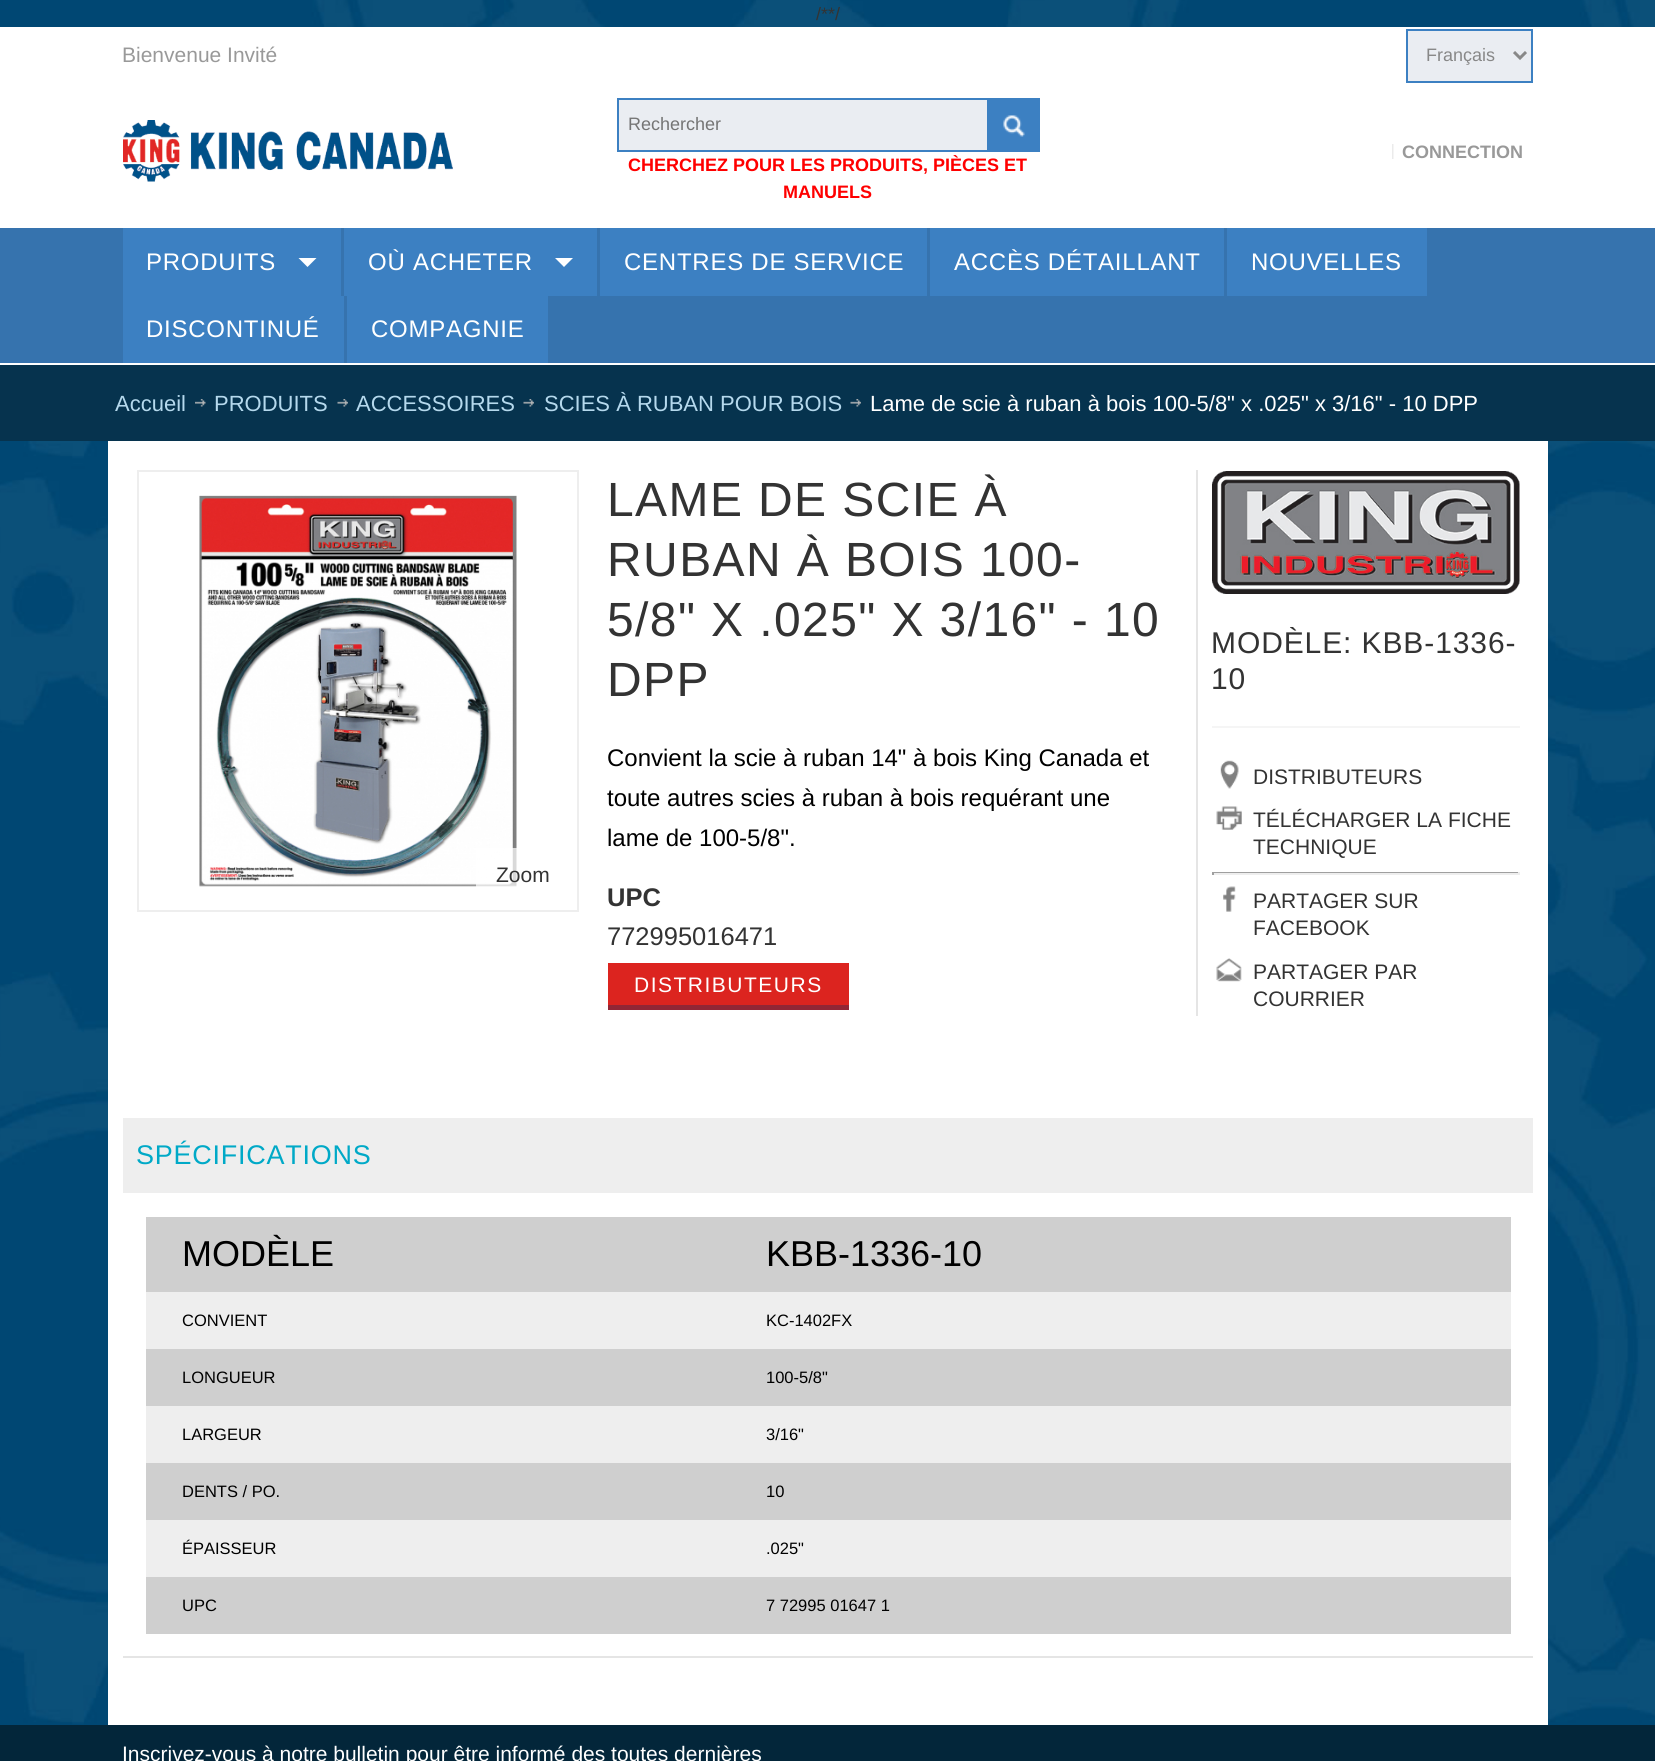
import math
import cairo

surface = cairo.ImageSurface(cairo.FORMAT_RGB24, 1655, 1761)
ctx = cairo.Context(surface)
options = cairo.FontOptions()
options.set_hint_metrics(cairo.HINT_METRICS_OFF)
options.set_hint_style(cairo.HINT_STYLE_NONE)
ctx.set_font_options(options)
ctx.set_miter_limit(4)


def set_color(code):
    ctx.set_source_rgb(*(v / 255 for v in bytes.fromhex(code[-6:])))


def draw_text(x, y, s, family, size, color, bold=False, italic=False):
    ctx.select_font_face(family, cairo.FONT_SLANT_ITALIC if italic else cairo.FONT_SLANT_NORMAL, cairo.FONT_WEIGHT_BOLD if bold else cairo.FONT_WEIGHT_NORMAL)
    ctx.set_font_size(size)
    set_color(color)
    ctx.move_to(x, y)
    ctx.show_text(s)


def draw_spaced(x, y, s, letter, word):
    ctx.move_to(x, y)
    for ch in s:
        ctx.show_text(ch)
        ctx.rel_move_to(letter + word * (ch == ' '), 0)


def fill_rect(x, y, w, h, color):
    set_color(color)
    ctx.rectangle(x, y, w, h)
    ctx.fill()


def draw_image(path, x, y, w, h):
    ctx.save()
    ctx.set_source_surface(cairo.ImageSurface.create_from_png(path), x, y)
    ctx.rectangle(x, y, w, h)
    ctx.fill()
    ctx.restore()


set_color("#ffffff")
ctx.paint()
draw_image("assets/img1.png", 0, 0, 1655, 1725)
draw_text(816, 20, "/**/", "Liberation Sans", 18, "#333333")
fill_rect(0, 27, 1655, 338, "#ffffff")
draw_text(122, 62, "Bienvenue Invité", "Liberation Sans", 21, "#999999")
set_color("#eaedf2")
ctx.rectangle(1407, 30, 125, 52)
ctx.fill_preserve()
set_color("#3c80c2")
ctx.stroke()
ctx.new_path()
ctx.move_to(1514, 52)
ctx.line_to(1520, 58)
ctx.line_to(1526, 52)
set_color("#888888")
ctx.set_line_width(3)
ctx.stroke()
draw_text(1426, 61, "Français", "Liberation Sans", 18, "#888888")
draw_image("assets/img2.png", 123, 120, 330, 62)
fill_rect(619, 100, 368, 50, "#eaedf2")
ctx.rectangle(618, 99, 421, 52)
set_color("#3c80c2")
ctx.set_line_width(2)
ctx.stroke()
draw_text(628, 130, "Rechercher", "Liberation Sans", 18, "#757575")
fill_rect(987, 100, 51, 50, "#3c80c2")
draw_image("assets/img3.png", 1003, 115, 22, 22)
draw_text(628, 171, "CHERCHEZ POUR LES PRODUITS, PIÈCES ET", "Liberation Sans", 18, "#ff0000", bold=True)
draw_text(783, 198, "MANUELS", "Liberation Sans", 18, "#ff0000", bold=True)
draw_image("assets/img4.png", 1392, 144, 2, 15)
draw_text(1402, 158, "CONNECTION", "Liberation Sans", 18, "#999999", bold=True)
fill_rect(0, 228, 1655, 135, "#3673ae")
fill_rect(123, 228, 218, 68, "#3c80c2")
ctx.select_font_face("Liberation Sans")
ctx.set_font_size(24)
set_color("#ffffff")
draw_spaced(146, 270, "PRODUITS", 0.75, 0)
ctx.new_path()
ctx.move_to(298.5, 258)
ctx.line_to(316.5, 258)
ctx.line_to(307.5, 267)
ctx.close_path()
ctx.fill()
fill_rect(344, 228, 253, 68, "#3c80c2")
set_color("#ffffff")
draw_spaced(368, 270, "OÙ ACHETER", 0.75, 0)
ctx.new_path()
ctx.move_to(555, 258)
ctx.line_to(573, 258)
ctx.line_to(564, 267)
ctx.close_path()
ctx.fill()
fill_rect(600, 228, 327, 68, "#3c80c2")
set_color("#ffffff")
draw_spaced(624, 270, "CENTRES DE SERVICE", 0.75, 0)
fill_rect(930, 228, 294, 68, "#3c80c2")
set_color("#ffffff")
draw_spaced(954, 270, "ACCÈS DÉTAILLANT", 0.75, 0)
fill_rect(1227, 228, 200, 68, "#3c80c2")
set_color("#ffffff")
draw_spaced(1251, 270, "NOUVELLES", 0.75, 0)
fill_rect(123, 296, 221, 67, "#3c80c2")
set_color("#ffffff")
draw_spaced(146, 337, "DISCONTINUÉ", 0.75, 0)
fill_rect(347, 296, 201, 67, "#3c80c2")
set_color("#ffffff")
draw_spaced(371, 337, "COMPAGNIE", 0.75, 0)
fill_rect(108, 441, 1440, 1284, "#ffffff")
fill_rect(0, 365, 1655, 76, "#06334e")
draw_text(115, 411, "Accueil", "Liberation Sans", 22, "#b5d9ed")
draw_image("assets/img5.png", 195, 399, 11, 8)
draw_text(214, 411, "PRODUITS", "Liberation Sans", 22, "#b5d9ed")
draw_image("assets/img6.png", 337, 399, 11, 8)
draw_text(356, 411, "ACCESSOIRES", "Liberation Sans", 22, "#b5d9ed")
draw_image("assets/img7.png", 523, 399, 11, 8)
draw_text(544, 411, "SCIES À RUBAN POUR BOIS", "Liberation Sans", 22, "#b5d9ed")
draw_image("assets/img6.png", 850, 399, 11, 8)
draw_text(870, 411, "Lame de scie à ruban à bois 100-5/8\" x .025\" x 3/16\" - 10 DPP", "Liberation Sans", 22, "#ffffff")
ctx.rectangle(138, 471, 440, 440)
set_color("#eeeeee")
ctx.stroke()
draw_image("assets/img8.png", 199, 495, 318, 392)
ctx.set_source_rgba(1, 1, 1, 0.7)
ctx.rectangle(476, 848, 41, 39)
ctx.fill()
draw_text(496, 882, "Zoom", "Liberation Sans", 21, "#333333")
ctx.set_font_size(48)
draw_spaced(607, 516, "LAME DE SCIE À", 1.4, 0)
draw_spaced(607, 576, "RUBAN À BOIS 100-", 1.4, 0)
draw_spaced(607, 636, "5/8\" X .025\" X 3/16\" - 10", 1.4, 0)
draw_spaced(607, 696, "DPP", 1.4, 0)
draw_text(607, 766, "Convient la scie à ruban 14\" à bois King Canada et", "Liberation Sans", 24, "#000000")
draw_text(607, 806, "toute autres scies à ruban à bois requérant une", "Liberation Sans", 24, "#000000")
draw_text(607, 846, "lame de 100-5/8\".", "Liberation Sans", 24, "#000000")
draw_text(607, 906, "UPC", "Liberation Sans", 25.5, "#333333", bold=True)
draw_text(607, 945, "772995016471", "Liberation Sans", 25.5, "#333333")
fill_rect(608, 963, 241, 42, "#dc241f")
ctx.set_font_size(21)
set_color("#ffffff")
draw_spaced(634, 992, "DISTRIBUTEURS", 1.5, 0)
fill_rect(608, 1005, 241, 5, "#922635")
fill_rect(1196, 470, 2, 546, "#e5e5e5")
draw_image("assets/img9.png", 1212, 471, 308, 123)
ctx.set_font_size(30)
set_color("#333333")
draw_spaced(1211, 653, "MODÈLE: KBB-1336-", 0.9, 0)
draw_spaced(1211, 689, "10", 0.9, 0)
fill_rect(1212, 726, 308, 2, "#f5f5f5")
draw_image("assets/img10.png", 1220, 760, 19, 29)
draw_text(1253, 784, "DISTRIBUTEURS", "Liberation Sans", 21, "#333333")
draw_image("assets/img11.png", 1216, 806, 26, 24)
draw_text(1253, 827, "TÉLÉCHARGER LA FICHE", "Liberation Sans", 21, "#333333")
draw_text(1253, 854, "TECHNIQUE", "Liberation Sans", 21, "#333333")
fill_rect(1212, 872, 308, 1, "#9f9f9f")
fill_rect(1518, 872, 2, 3, "#eeeeee")
fill_rect(1212, 873, 308, 2, "#eeeeee")
fill_rect(1212, 872, 2, 3, "#9f9f9f")
draw_image("assets/img12.png", 1223, 886, 13, 26)
draw_text(1253, 908, "PARTAGER SUR", "Liberation Sans", 21, "#333333")
draw_text(1253, 935, "FACEBOOK", "Liberation Sans", 21, "#333333")
draw_image("assets/img13.png", 1216, 958, 26, 24)
draw_text(1253, 979, "PARTAGER PAR", "Liberation Sans", 21, "#333333")
draw_text(1253, 1006, "COURRIER", "Liberation Sans", 21, "#333333")
fill_rect(123, 1118, 1410, 75, "#eeeeee")
ctx.set_font_size(27)
set_color("#00a9c7")
draw_spaced(136, 1164, "SPÉCIFICATIONS", 0.75, 0)
fill_rect(123, 1656, 1410, 2, "#e5e5e5")
fill_rect(146, 1217, 1365, 75, "#cfcfcf")
draw_text(182, 1266, "MODÈLE", "Liberation Sans", 36, "#000000")
draw_text(766, 1266, "KBB-1336-10", "Liberation Sans", 36, "#000000")
fill_rect(146, 1292, 1365, 57, "#eeeeee")
draw_text(182, 1326, "CONVIENT", "Liberation Sans", 16.5, "#000000")
draw_text(766, 1326, "KC-1402FX", "Liberation Sans", 16.5, "#000000")
fill_rect(146, 1349, 1365, 57, "#cfcfcf")
draw_text(182, 1383, "LONGUEUR", "Liberation Sans", 16.5, "#000000")
draw_text(766, 1383, "100-5/8\"", "Liberation Sans", 16.5, "#000000")
fill_rect(146, 1406, 1365, 57, "#eeeeee")
draw_text(182, 1440, "LARGEUR", "Liberation Sans", 16.5, "#000000")
draw_text(766, 1440, "3/16\"", "Liberation Sans", 16.5, "#000000")
fill_rect(146, 1463, 1365, 57, "#cfcfcf")
draw_text(182, 1497, "DENTS / PO.", "Liberation Sans", 16.5, "#000000")
draw_text(766, 1497, "10", "Liberation Sans", 16.5, "#000000")
fill_rect(146, 1520, 1365, 57, "#eeeeee")
draw_text(182, 1554, "ÉPAISSEUR", "Liberation Sans", 16.5, "#000000")
draw_text(766, 1554, ".025\"", "Liberation Sans", 16.5, "#000000")
fill_rect(146, 1577, 1365, 57, "#cfcfcf")
draw_text(182, 1611, "UPC", "Liberation Sans", 16.5, "#000000")
draw_text(766, 1611, "7 72995 01647 1", "Liberation Sans", 16.5, "#000000")
fill_rect(0, 1725, 1655, 36, "#03263a")
draw_text(122, 1761, "Inscrivez-vous à notre bulletin pour être informé des toutes dernières", "Liberation Sans", 21, "#ffffff")
surface.write_to_png("output.png")
